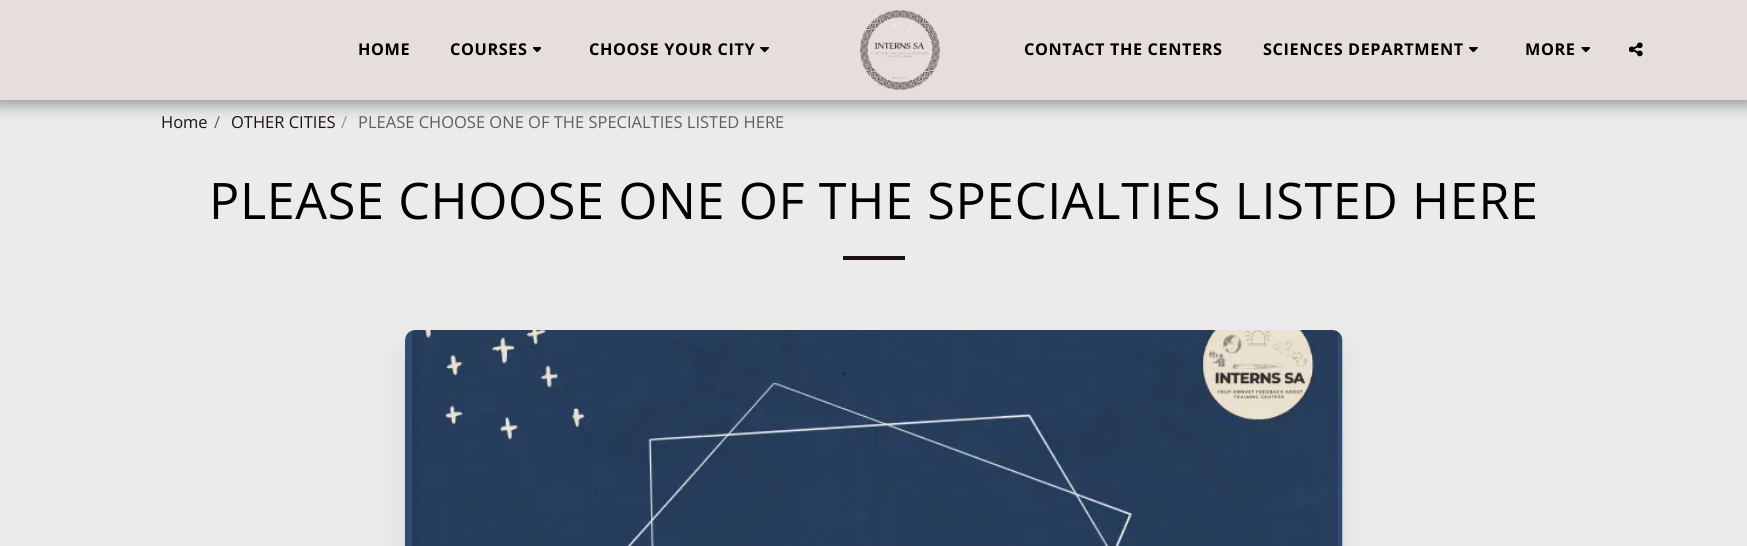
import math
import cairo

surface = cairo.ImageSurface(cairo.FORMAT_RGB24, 1747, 546)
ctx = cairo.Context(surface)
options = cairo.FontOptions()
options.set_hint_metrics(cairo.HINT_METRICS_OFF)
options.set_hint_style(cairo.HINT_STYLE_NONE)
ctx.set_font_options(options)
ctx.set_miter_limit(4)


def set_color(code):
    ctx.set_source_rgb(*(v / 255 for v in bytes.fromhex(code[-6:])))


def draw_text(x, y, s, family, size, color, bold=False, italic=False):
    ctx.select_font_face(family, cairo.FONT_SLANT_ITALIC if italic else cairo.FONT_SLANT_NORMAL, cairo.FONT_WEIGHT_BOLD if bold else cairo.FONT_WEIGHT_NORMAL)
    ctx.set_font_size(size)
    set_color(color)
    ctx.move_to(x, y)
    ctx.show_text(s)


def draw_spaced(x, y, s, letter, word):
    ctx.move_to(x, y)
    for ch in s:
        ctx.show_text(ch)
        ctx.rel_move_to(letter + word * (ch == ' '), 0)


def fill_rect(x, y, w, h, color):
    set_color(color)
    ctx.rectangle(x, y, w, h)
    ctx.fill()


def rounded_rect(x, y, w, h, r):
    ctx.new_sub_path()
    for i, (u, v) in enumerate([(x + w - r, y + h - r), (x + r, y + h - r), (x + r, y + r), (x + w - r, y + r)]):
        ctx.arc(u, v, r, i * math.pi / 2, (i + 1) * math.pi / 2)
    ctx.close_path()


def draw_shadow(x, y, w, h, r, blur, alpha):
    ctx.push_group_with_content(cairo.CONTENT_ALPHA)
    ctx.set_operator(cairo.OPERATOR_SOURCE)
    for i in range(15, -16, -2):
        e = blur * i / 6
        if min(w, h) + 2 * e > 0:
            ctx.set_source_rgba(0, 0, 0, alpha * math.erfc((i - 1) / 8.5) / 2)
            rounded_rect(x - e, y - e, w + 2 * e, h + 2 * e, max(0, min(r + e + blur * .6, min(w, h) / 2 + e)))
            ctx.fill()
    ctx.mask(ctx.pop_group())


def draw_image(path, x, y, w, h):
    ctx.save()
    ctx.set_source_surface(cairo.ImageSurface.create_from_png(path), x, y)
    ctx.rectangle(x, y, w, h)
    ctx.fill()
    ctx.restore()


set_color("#ebebeb")
ctx.paint()
set_color("#000000")
draw_shadow(-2, 0, 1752, 105, 0, 7.5, 0.35)
fill_rect(0, 0, 1747, 100, "#e6dedd")
ctx.select_font_face("Open Sans", cairo.FONT_SLANT_NORMAL, cairo.FONT_WEIGHT_BOLD)
ctx.set_font_size(16.25)
set_color("#000000")
draw_spaced(358, 55, "HOME", 0.6, 0)
draw_spaced(450, 55, "COURSES", 0.6, 0)
draw_image("assets/img1.png", 533, 47, 8, 6)
draw_spaced(589, 55, "CHOOSE YOUR CITY", 0.6, 0)
draw_image("assets/img2.png", 760, 47, 9, 6)
draw_image("assets/img3.png", 860, 10, 80, 80)
draw_spaced(1024, 55, "CONTACT THE CENTERS", 0.6, 0)
draw_spaced(1263, 55, "SCIENCES DEPARTMENT", 0.6, 0)
draw_image("assets/img4.png", 1469, 47, 9, 6)
draw_spaced(1525, 55, "MORE", 0.6, 0)
draw_image("assets/img5.png", 1581, 47, 9, 6)
draw_image("assets/img6.png", 1629, 42, 14, 15)
draw_text(161, 128, "Home", "Open Sans", 16.5, "#1b120f")
draw_text(214, 128, "/", "Open Sans", 16.5, "#5e5e5e")
draw_text(231, 128, "OTHER CITIES", "Open Sans", 16.5, "#1b120f")
draw_text(341, 128, "/", "Open Sans", 16.5, "#969696")
draw_text(358, 128, "PLEASE CHOOSE ONE OF THE SPECIALTIES LISTED HERE", "Open Sans", 16.5, "#5e5e5e")
ctx.set_font_size(50.35)
set_color("#000000")
draw_spaced(209, 219, "PLEASE CHOOSE ONE OF THE SPECIALTIES LISTED HERE", 0.6, 0)
fill_rect(843, 256, 62, 4, "#1b120f")
set_color("#000000")
draw_shadow(405, 349, 938, 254, 10, 15.5, 0.08)
draw_image("assets/img7.png", 405, 330, 938, 216)
surface.write_to_png("output.png")
